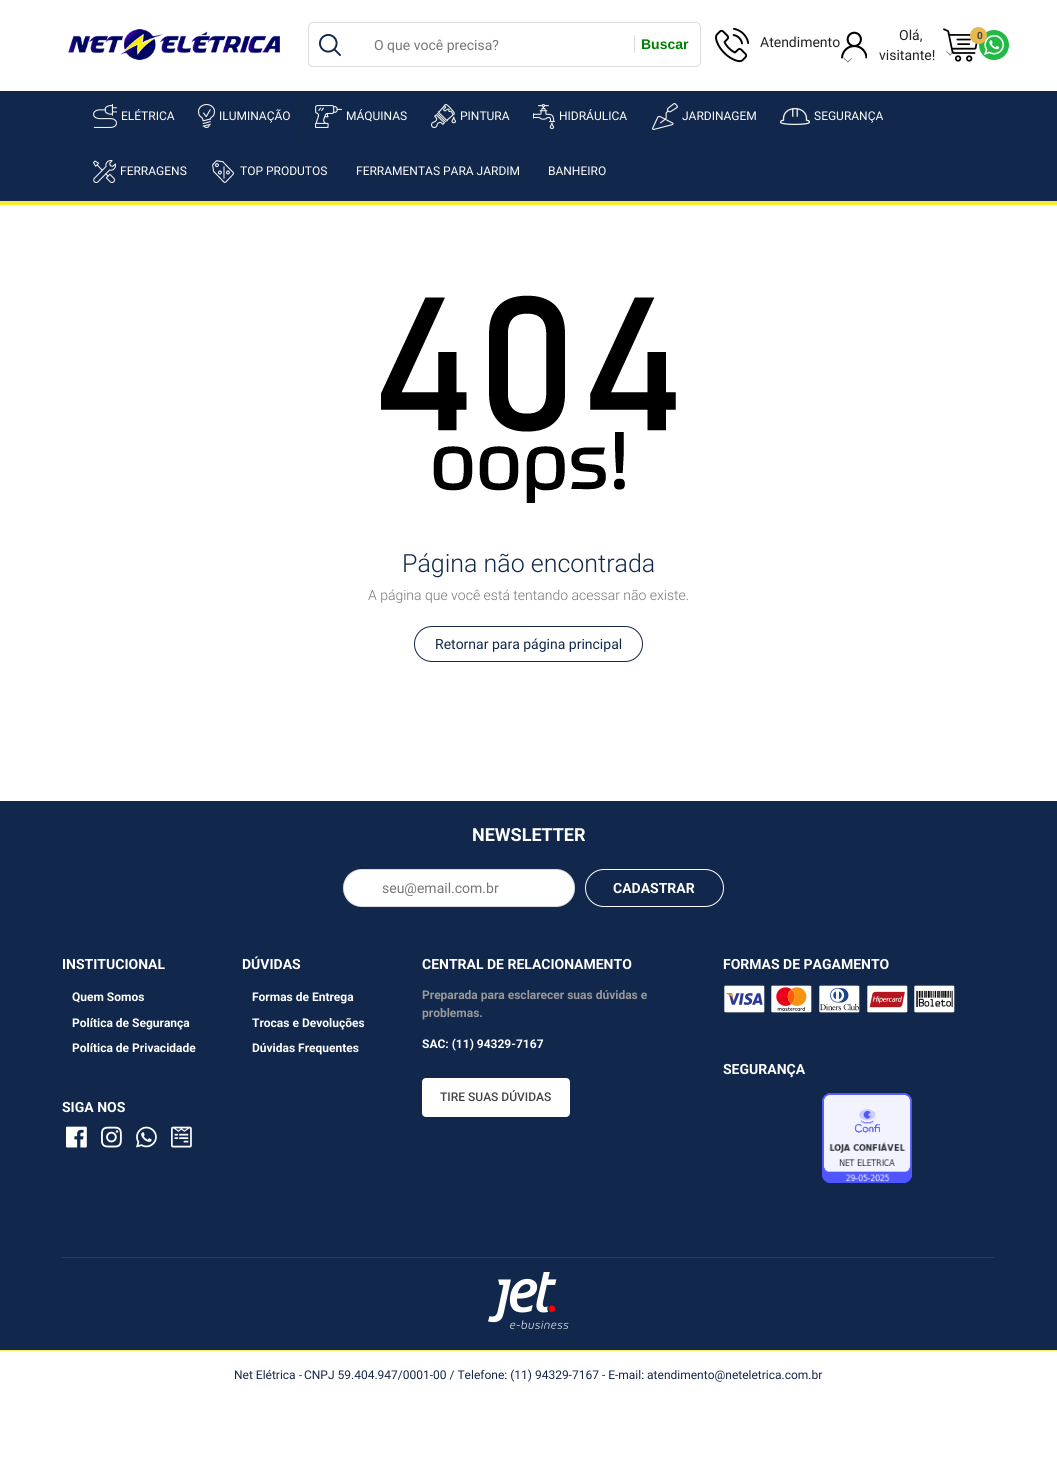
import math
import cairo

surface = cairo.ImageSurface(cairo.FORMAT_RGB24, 1057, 1457)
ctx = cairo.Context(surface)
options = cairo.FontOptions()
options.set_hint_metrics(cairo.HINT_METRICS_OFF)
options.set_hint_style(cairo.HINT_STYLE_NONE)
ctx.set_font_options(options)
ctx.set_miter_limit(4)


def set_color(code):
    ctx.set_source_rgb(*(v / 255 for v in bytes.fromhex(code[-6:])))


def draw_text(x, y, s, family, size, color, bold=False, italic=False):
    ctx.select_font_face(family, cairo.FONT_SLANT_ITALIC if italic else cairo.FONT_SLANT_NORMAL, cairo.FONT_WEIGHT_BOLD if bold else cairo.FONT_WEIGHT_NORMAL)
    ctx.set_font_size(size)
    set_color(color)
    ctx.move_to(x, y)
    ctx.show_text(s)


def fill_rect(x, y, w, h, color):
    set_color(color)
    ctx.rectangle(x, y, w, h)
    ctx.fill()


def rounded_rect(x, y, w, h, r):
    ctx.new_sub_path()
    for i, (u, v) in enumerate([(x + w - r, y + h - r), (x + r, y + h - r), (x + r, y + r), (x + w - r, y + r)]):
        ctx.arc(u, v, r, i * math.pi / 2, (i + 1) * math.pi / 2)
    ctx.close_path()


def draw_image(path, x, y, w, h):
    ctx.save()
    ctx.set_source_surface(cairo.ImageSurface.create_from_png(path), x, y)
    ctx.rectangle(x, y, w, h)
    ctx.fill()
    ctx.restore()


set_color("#ffffff")
ctx.paint()
draw_image("assets/img1.png", 68, 29, 212, 31)
draw_image("assets/img2.png", 319, 34, 22, 22)
rounded_rect(308.5, 22.5, 392, 44, 4.5)
set_color("#dcdcdc")
ctx.set_line_width(1)
ctx.stroke()
draw_text(374, 50, "O que você precisa?", "Roboto", 14, "#767676")
fill_rect(634, 35, 1, 18, "#dcdcdc")
draw_text(641, 49, "Buscar", "Liberation Sans", 14, "#008000", bold=True)
set_color("#808080")
ctx.new_path()
ctx.move_to(851.5, 58)
ctx.line_to(852, 58.5)
ctx.line_to(848, 62.5)
ctx.line_to(847, 62)
ctx.close_path()
ctx.fill()
ctx.new_path()
ctx.move_to(844.5, 58)
ctx.line_to(848.5, 62)
ctx.line_to(848, 62.5)
ctx.line_to(843.5, 58.5)
ctx.close_path()
ctx.fill()
draw_image("assets/img3.png", 841, 31, 26, 28)
draw_text(899, 40, "Olá,", "Roboto", 14, "#212121")
draw_text(879, 60, "visitante!", "Roboto", 14, "#212121")
set_color("#808080")
ctx.new_path()
ctx.move_to(953.5, 51)
ctx.line_to(954.5, 51.5)
ctx.line_to(950, 55.5)
ctx.line_to(949.5, 55)
ctx.close_path()
ctx.fill()
ctx.new_path()
ctx.move_to(946.5, 51)
ctx.line_to(951, 55)
ctx.line_to(950, 55.5)
ctx.line_to(946, 51.5)
ctx.close_path()
ctx.fill()
set_color("#21ba45")
ctx.arc(994, 45, 15, 0, 2 * math.pi)
ctx.fill()
draw_image("assets/img4.png", 984, 35, 20, 20)
draw_image("assets/img5.png", 715, 27, 34, 36)
draw_text(760, 47, "Atendimento", "Roboto", 14, "#212121")
draw_image("assets/img6.png", 943, 28, 35, 34)
set_color("#e7b94f")
ctx.arc(978.5, 35.5, 8.5, 0, 2 * math.pi)
ctx.fill()
draw_text(977, 39, "0", "Roboto", 10, "#444444", bold=True)
fill_rect(0, 91, 1057, 110, "#11274b")
draw_image("assets/img7.png", 93, 104, 24, 24)
draw_text(121, 120, "ELÉTRICA", "Roboto", 12, "#ffffff")
fill_rect(185, 91, 1, 55, "#132747")
draw_image("assets/img8.png", 198, 104, 17, 24)
draw_text(219, 120, "ILUMINAÇÃO", "Roboto", 12, "#ffffff")
fill_rect(302, 91, 1, 55, "#132747")
draw_image("assets/img9.png", 315, 105, 27, 23)
draw_text(346, 120, "MÁQUINAS", "Roboto", 12, "#ffffff")
fill_rect(418, 91, 1, 55, "#132747")
draw_image("assets/img10.png", 431, 104, 25, 24)
draw_text(460, 120, "PINTURA", "Roboto", 12, "#ffffff")
fill_rect(520, 91, 1, 55, "#132747")
draw_image("assets/img11.png", 533, 104, 22, 25)
draw_text(559, 120, "HIDRÁULICA", "Roboto", 12, "#ffffff")
fill_rect(639, 91, 1, 55, "#132747")
draw_image("assets/img12.png", 652, 103, 26, 27)
draw_text(682, 120, "JARDINAGEM", "Roboto", 12, "#ffffff")
fill_rect(767, 91, 1, 55, "#132747")
draw_image("assets/img13.png", 780, 108, 30, 17)
draw_text(814, 120, "SEGURANÇA", "Roboto", 12, "#ffffff")
fill_rect(895, 91, 1, 55, "#132747")
draw_image("assets/img14.png", 93, 160, 23, 23)
draw_text(120, 175, "FERRAGENS", "Roboto", 12, "#ffffff")
fill_rect(197, 146, 1, 55, "#132747")
draw_image("assets/img15.png", 212, 160, 22, 23)
draw_text(240, 175, "TOP PRODUTOS", "Roboto", 12, "#ffffff")
fill_rect(339, 146, 1, 55, "#132747")
draw_text(356, 175, "FERRAMENTAS PARA JARDIM", "Roboto", 12, "#ffffff")
fill_rect(531, 146, 1, 55, "#132747")
draw_text(548, 175, "BANHEIRO", "Roboto", 12, "#ffffff")
fill_rect(617, 146, 1, 55, "#132747")
fill_rect(0, 201, 1057, 4, "#fdea2d")
draw_image("assets/img16.png", 381, 295, 295, 137)
draw_image("assets/img17.png", 433, 432, 192, 71)
draw_text(402, 572, "Página não encontrada", "Roboto Light", 25, "#11274b")
draw_text(368, 600, "A página que você está tentando acessar não existe.", "Roboto Light", 14, "#767676")
rounded_rect(414.5, 626.5, 228, 35, 17.5)
set_color("#11274b")
ctx.stroke()
draw_text(435, 649, "Retornar para página principal", "Roboto", 14, "#11274b")
fill_rect(0, 801, 1057, 548, "#11274b")
draw_text(472, 841, "NEWSLETTER", "Roboto", 18, "#ffffff", bold=True)
rounded_rect(343, 869, 232, 38, 19)
ctx.fill()
rounded_rect(343.5, 869.5, 231, 37, 18.5)
ctx.set_source_rgba(0.133, 0.141, 0.149, 0.15)
ctx.stroke()
draw_text(382, 893, "seu@email.com.br", "Roboto", 14, "#767676")
rounded_rect(585.5, 869.5, 138, 37, 18.5)
set_color("#ffffff")
ctx.stroke()
draw_text(613, 893, "CADASTRAR", "Roboto", 14, "#ffffff", bold=True)
fill_rect(0, 1349, 1057, 1, "#142745")
draw_text(62, 969, "INSTITUCIONAL", "Roboto", 14, "#ffffff", bold=True)
draw_text(72, 1001, "Quem Somos", "Roboto", 12, "#ffffff", bold=True)
draw_text(72, 1027, "Política de Segurança", "Roboto", 12, "#ffffff", bold=True)
draw_text(72, 1052, "Política de Privacidade", "Roboto", 12, "#ffffff", bold=True)
draw_text(242, 969, "DÚVIDAS", "Roboto", 14, "#ffffff", bold=True)
draw_text(252, 1001, "Formas de Entrega", "Roboto", 12, "#ffffff", bold=True)
draw_text(252, 1027, "Trocas e Devoluções", "Roboto", 12, "#ffffff", bold=True)
draw_text(252, 1052, "Dúvidas Frequentes", "Roboto", 12, "#ffffff", bold=True)
draw_text(62, 1112, "SIGA NOS", "Roboto", 14, "#ffffff", bold=True)
draw_image("assets/img18.png", 66, 1126, 21, 22)
draw_image("assets/img19.png", 101, 1126, 21, 22)
draw_image("assets/img20.png", 136, 1126, 21, 22)
draw_image("assets/img21.png", 171, 1126, 21, 22)
draw_text(422, 969, "CENTRAL DE RELACIONAMENTO", "Roboto", 14, "#ffffff", bold=True)
draw_text(422, 999, "Preparada para esclarecer suas dúvidas e", "Roboto", 12, "#999999", bold=True)
draw_text(422, 1017, "problemas.", "Roboto", 12, "#999999", bold=True)
draw_text(422, 1048, "SAC: (11) 94329-7167", "Roboto", 12, "#ffffff", bold=True)
rounded_rect(422, 1078, 148, 39, 4)
ctx.fill()
draw_text(440, 1101, "TIRE SUAS DÚVIDAS", "Roboto Medium", 12, "#444444")
draw_text(723, 969, "FORMAS DE PAGAMENTO", "Roboto", 14, "#ffffff", bold=True)
draw_image("assets/img22.png", 724, 985, 41, 28)
draw_image("assets/img23.png", 771, 985, 41, 28)
draw_image("assets/img24.png", 819, 985, 41, 28)
draw_image("assets/img25.png", 867, 985, 41, 28)
draw_image("assets/img26.png", 914, 985, 41, 28)
draw_text(723, 1074, "SEGURANÇA", "Roboto", 14, "#ffffff", bold=True)
draw_image("assets/img27.png", 822, 1093, 90, 90)
fill_rect(62, 1256, 933, 1, "#142745")
fill_rect(62, 1257, 933, 1, "#293d5d")
draw_image("assets/img28.png", 488, 1272, 81, 57)
fill_rect(0, 1350, 1057, 1, "#fdef60")
draw_text(234, 1379, "Net Elétrica", "Roboto", 12, "#11274b")
draw_text(299, 1379, "-", "Roboto", 11, "#212121")
draw_text(304, 1379, "CNPJ 59.404.947/0001-00 / Telefone: (11) 94329-7167 - E-mail: atendimento@neteletrica.com.br", "Roboto", 12, "#11274b")
surface.write_to_png("output.png")
